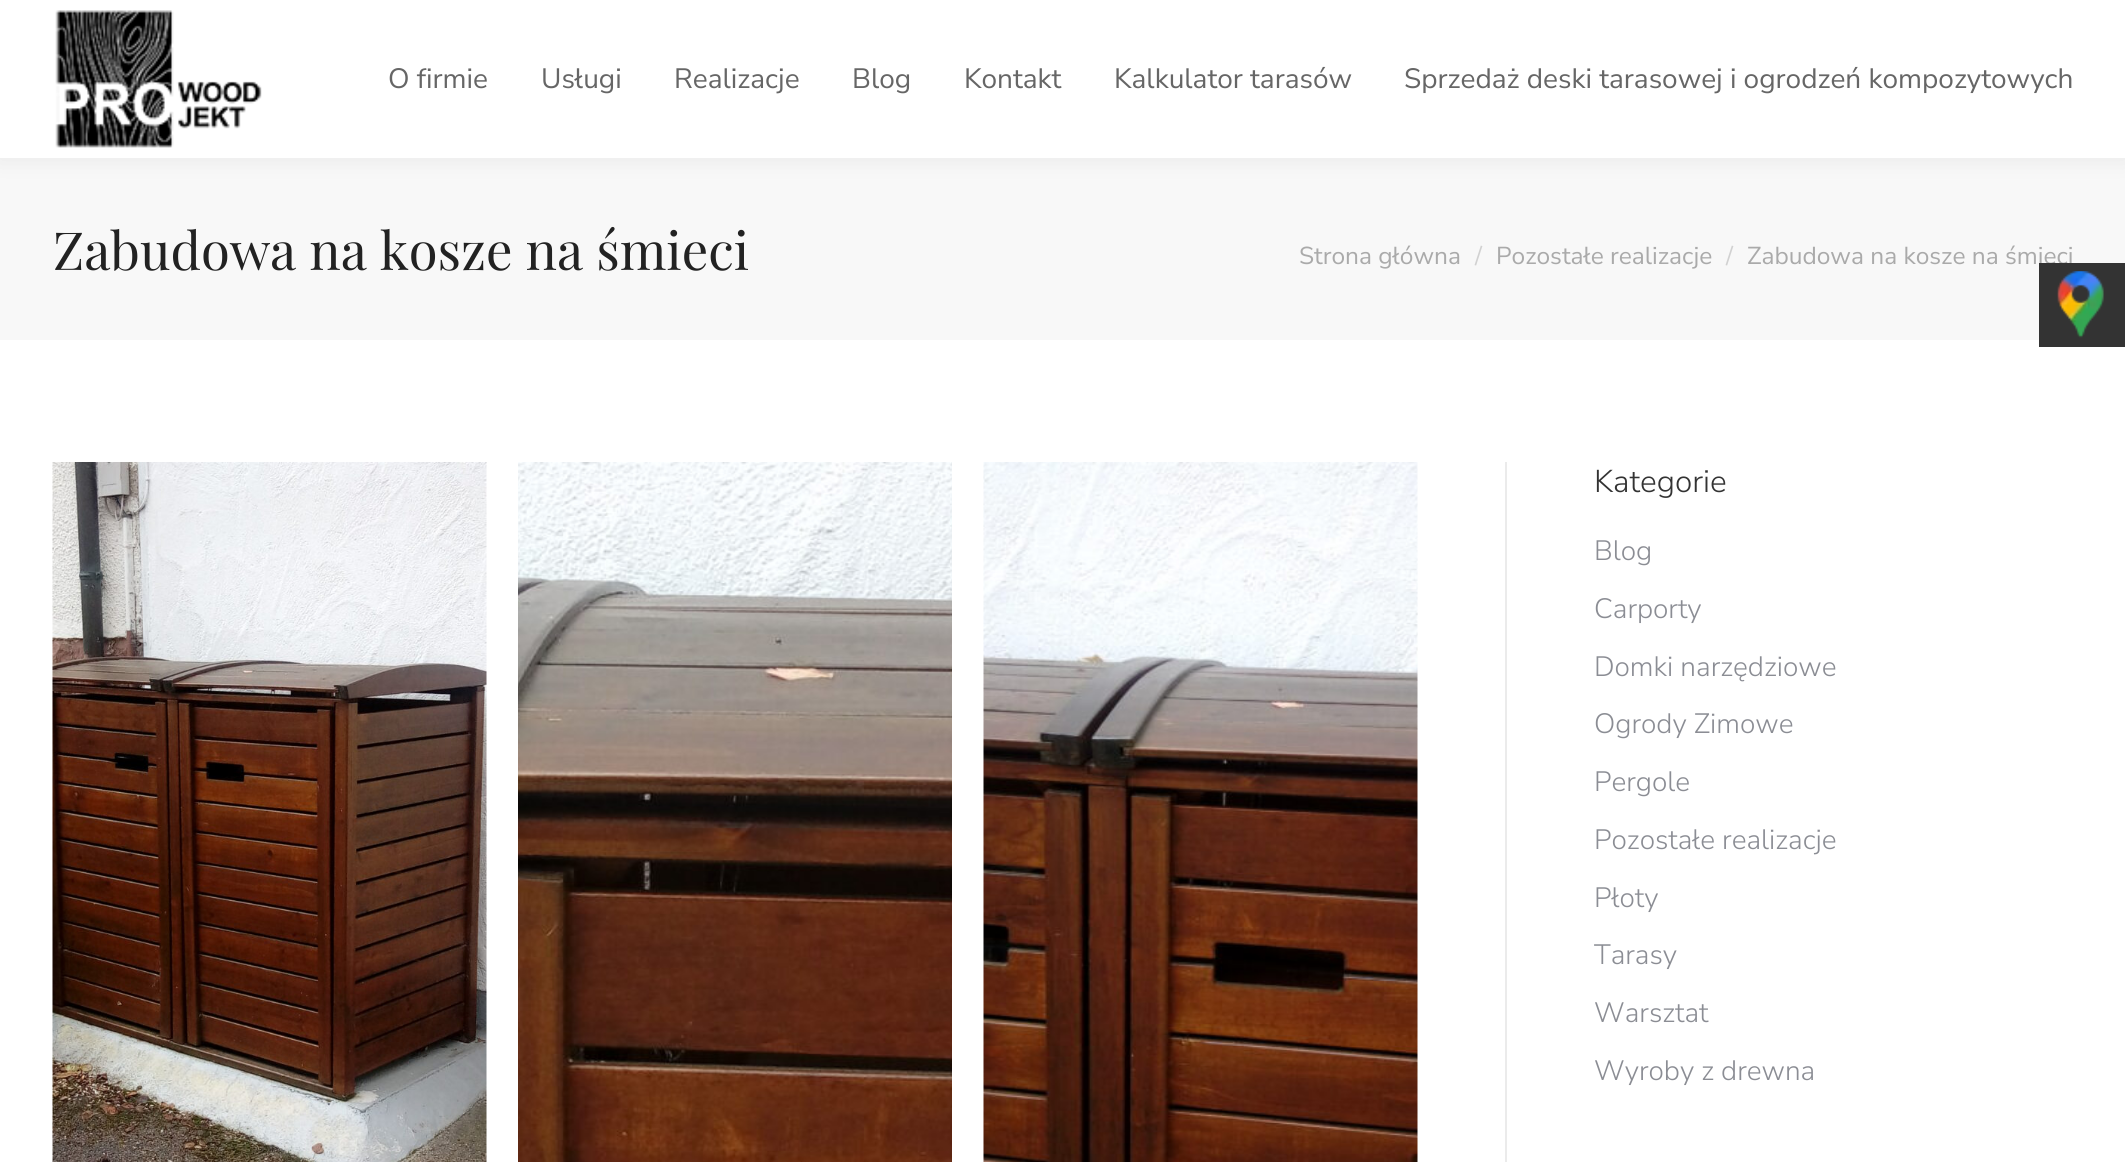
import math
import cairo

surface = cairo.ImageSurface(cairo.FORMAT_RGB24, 2125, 1162)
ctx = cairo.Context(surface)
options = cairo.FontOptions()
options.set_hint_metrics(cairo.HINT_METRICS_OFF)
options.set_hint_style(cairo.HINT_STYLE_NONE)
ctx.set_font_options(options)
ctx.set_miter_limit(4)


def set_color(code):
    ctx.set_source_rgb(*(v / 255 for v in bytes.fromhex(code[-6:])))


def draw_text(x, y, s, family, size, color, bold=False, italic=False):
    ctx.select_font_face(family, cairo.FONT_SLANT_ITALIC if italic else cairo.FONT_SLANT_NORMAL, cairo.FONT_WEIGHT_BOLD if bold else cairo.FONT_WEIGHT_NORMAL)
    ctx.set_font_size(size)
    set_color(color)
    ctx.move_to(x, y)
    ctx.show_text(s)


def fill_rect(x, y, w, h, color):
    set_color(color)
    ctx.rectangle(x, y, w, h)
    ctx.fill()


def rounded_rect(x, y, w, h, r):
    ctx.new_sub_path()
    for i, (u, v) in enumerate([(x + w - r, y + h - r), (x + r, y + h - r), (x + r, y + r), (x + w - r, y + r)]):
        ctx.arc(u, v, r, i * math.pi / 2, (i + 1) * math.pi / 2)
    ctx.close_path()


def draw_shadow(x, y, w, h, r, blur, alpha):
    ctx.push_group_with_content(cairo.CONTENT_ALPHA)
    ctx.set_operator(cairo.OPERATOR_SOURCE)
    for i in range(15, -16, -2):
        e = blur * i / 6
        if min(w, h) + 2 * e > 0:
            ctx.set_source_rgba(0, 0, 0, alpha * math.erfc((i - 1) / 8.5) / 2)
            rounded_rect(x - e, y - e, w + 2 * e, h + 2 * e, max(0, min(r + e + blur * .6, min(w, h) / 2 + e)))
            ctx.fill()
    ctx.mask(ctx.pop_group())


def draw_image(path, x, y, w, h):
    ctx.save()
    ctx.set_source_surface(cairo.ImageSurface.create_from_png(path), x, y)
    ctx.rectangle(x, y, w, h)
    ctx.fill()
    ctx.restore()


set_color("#ffffff")
ctx.paint()
fill_rect(0, 158, 2125, 182, "#f8f8f8")
set_color("#000000")
draw_shadow(-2, -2, 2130, 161, 0, 13, 0.07)
fill_rect(0, 0, 2125, 158, "#ffffff")
draw_image("assets/img1.png", 55, 10, 207, 138)
draw_text(388, 88, "O firmie", "Nunito Sans", 28, "#666666")
draw_text(541, 88, "Usługi", "Nunito Sans", 28, "#666666")
draw_text(674, 88, "Realizacje", "Nunito Sans", 28, "#666666")
draw_text(852, 88, "Blog", "Nunito Sans", 28, "#666666")
draw_text(964, 88, "Kontakt", "Nunito Sans", 28, "#666666")
draw_text(1114, 88, "Kalkulator tarasów", "Nunito Sans", 28, "#666666")
draw_text(1404, 88, "Sprzedaż deski tarasowej i ogrodzeń kompozytowych", "Nunito Sans", 28, "#666666")
draw_text(53, 270, "Zabudowa na kosze na śmieci", "Playfair Display", 52.5, "#222222")
draw_text(1299, 264, "Strona główna", "Nunito Sans", 24.5, "#aaaaaa")
draw_text(1475, 264, "/", "Nunito Sans", 24.5, "#d1d1d1")
draw_text(1496, 264, "Pozostałe realizacje", "Nunito Sans", 24.5, "#aaaaaa")
draw_text(1726, 264, "/", "Nunito Sans", 24.5, "#d1d1d1")
draw_text(1747, 264, "Zabudowa na kosze na śmieci", "Nunito Sans", 24.5, "#aaaaaa")
draw_image("assets/img2.png", 52, 462, 435, 700)
draw_image("assets/img3.png", 518, 462, 434, 700)
draw_image("assets/img4.png", 983, 462, 435, 700)
fill_rect(1505, 462, 2, 700, "#ebebeb")
draw_text(1594, 492, "Kategorie", "Nunito Sans Light", 31.5, "#333333")
draw_text(1594, 560, "Blog", "Nunito Sans Light", 28, "#8b8d94")
draw_text(1594, 618, "Carporty", "Nunito Sans Light", 28, "#8b8d94")
draw_text(1594, 676, "Domki narzędziowe", "Nunito Sans Light", 28, "#8b8d94")
draw_text(1594, 733, "Ogrody Zimowe", "Nunito Sans Light", 28, "#8b8d94")
draw_text(1594, 791, "Pergole", "Nunito Sans Light", 28, "#8b8d94")
draw_text(1594, 849, "Pozostałe realizacje", "Nunito Sans Light", 28, "#8b8d94")
draw_text(1594, 907, "Płoty", "Nunito Sans Light", 28, "#8b8d94")
draw_text(1594, 964, "Tarasy", "Nunito Sans Light", 28, "#8b8d94")
draw_text(1594, 1022, "Warsztat", "Nunito Sans Light", 28, "#8b8d94")
draw_text(1594, 1080, "Wyroby z drewna", "Nunito Sans Light", 28, "#8b8d94")
fill_rect(2039, 263, 86, 84, "#333333")
draw_image("assets/img5.png", 2057, 271, 47, 67)
surface.write_to_png("output.png")
